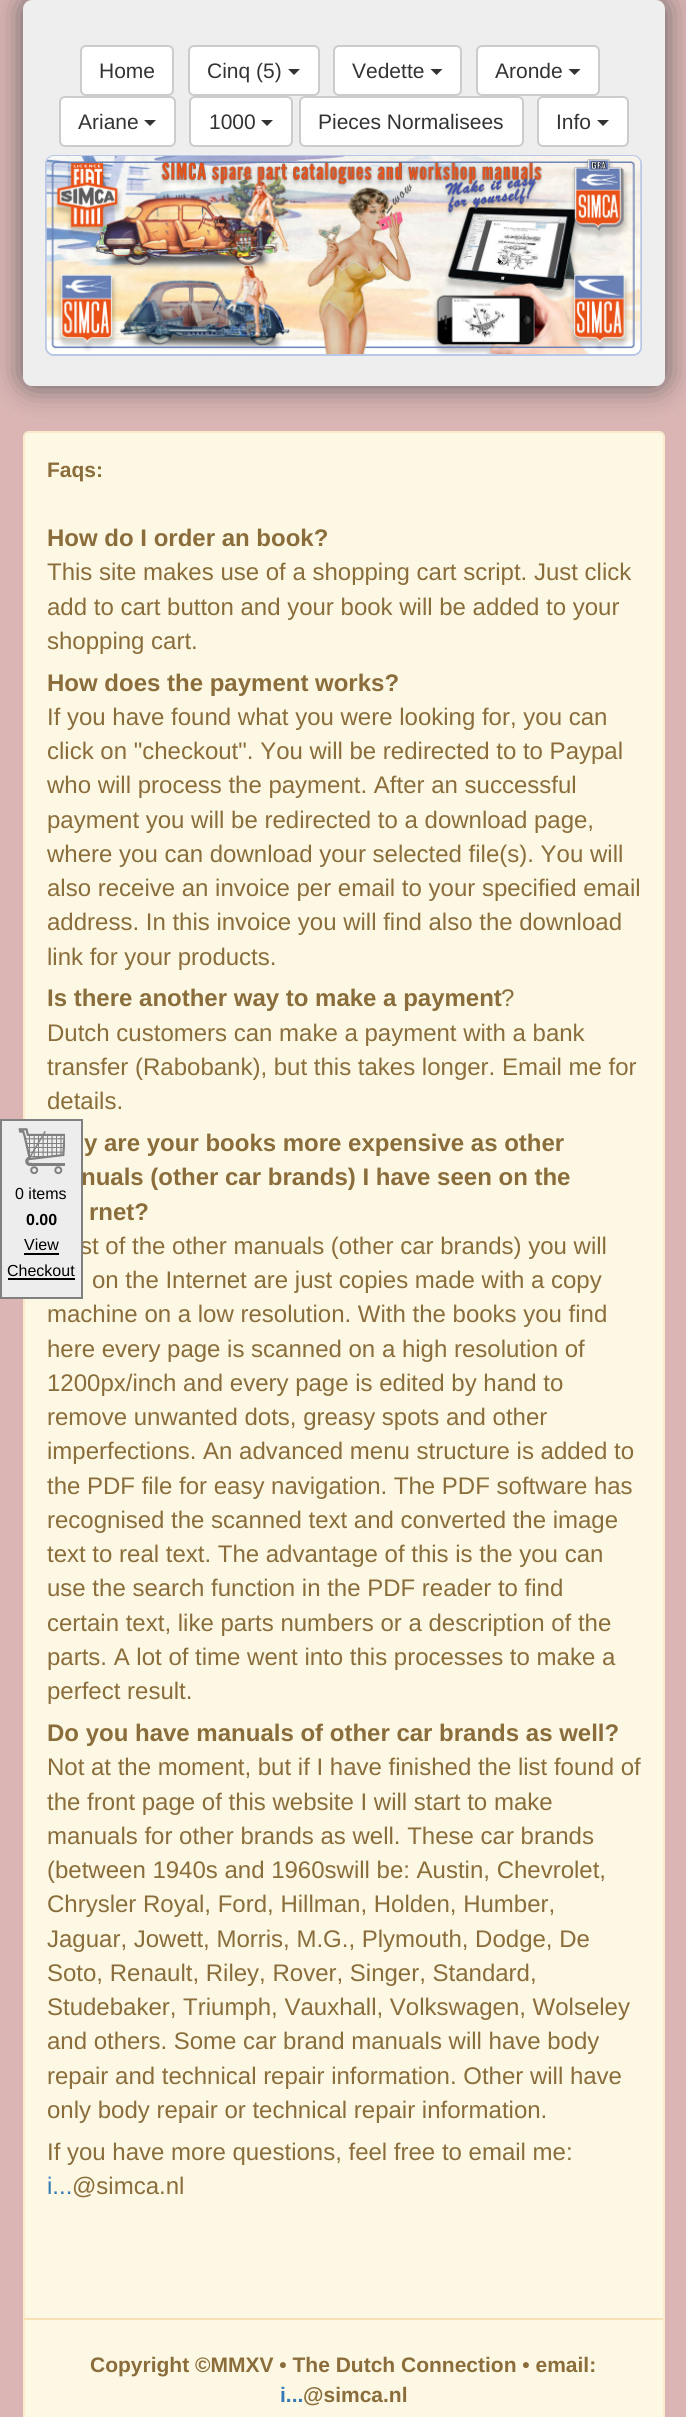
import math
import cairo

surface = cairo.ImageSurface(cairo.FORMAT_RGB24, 686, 2417)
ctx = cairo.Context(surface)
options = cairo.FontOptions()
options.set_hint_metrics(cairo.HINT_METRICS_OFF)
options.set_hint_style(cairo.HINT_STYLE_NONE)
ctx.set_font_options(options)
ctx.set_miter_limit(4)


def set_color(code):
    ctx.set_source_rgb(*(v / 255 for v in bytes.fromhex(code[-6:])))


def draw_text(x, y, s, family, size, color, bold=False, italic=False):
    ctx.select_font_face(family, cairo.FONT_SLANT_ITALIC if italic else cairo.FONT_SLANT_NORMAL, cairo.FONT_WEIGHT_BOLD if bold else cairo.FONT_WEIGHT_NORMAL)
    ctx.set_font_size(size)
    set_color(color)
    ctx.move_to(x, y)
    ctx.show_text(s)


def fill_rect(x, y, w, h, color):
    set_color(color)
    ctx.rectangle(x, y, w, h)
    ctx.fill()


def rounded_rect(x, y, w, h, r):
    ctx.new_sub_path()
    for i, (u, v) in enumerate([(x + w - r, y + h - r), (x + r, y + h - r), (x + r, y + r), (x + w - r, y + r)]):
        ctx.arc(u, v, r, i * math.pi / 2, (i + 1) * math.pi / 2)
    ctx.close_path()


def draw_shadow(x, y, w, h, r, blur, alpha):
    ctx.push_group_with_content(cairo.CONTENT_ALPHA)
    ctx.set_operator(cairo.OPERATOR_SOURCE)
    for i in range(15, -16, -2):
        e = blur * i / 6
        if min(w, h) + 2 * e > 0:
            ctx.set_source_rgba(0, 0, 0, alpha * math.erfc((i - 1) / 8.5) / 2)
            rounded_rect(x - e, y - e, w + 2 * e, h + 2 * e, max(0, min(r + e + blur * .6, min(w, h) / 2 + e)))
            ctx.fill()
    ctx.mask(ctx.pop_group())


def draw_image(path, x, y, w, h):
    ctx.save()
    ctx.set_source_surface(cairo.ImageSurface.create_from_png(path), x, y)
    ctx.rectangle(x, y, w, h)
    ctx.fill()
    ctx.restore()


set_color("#dab5b4")
ctx.paint()
set_color("#fcf8e3")
rounded_rect(24, 432, 640, 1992, 5)
ctx.fill_preserve()
set_color("#faebcc")
ctx.stroke()
draw_text(81, 1185, "nuals (other car brands) I have seen on the", "Liberation Sans", 24, "#8a6d3b", bold=True)
draw_text(80, 1254, "st of the other manuals (other car brands) you will", "Liberation Sans", 24, "#8a6d3b")
set_color("#ededed")
ctx.rectangle(1, 1120, 81, 178)
ctx.fill_preserve()
set_color("#808080")
ctx.stroke()
draw_image("assets/img1.png", 18, 1128, 47, 47)
draw_text(15, 1199, "0 items", "Liberation Sans", 16, "#000000")
draw_text(26, 1225, "0.00", "Liberation Sans", 16, "#000000", bold=True)
draw_text(24, 1250, "View", "Liberation Sans", 16, "#000000")
fill_rect(24, 1253, 35, 2, "#000000")
draw_text(7, 1276, "Checkout", "Liberation Sans", 16, "#000000")
fill_rect(8, 1278, 67, 2, "#000000")
set_color("#5d5c5c")
draw_shadow(23, 0, 642, 386, 9, 15, 1)
set_color("#eeeeee")
rounded_rect(23, 0, 642, 386, 9)
ctx.fill()
set_color("#ffffff")
rounded_rect(81, 46, 92, 49, 5)
ctx.fill_preserve()
set_color("#cccccc")
ctx.stroke()
draw_text(99, 78, "Home", "Liberation Sans", 21, "#333333")
set_color("#ffffff")
rounded_rect(189, 46, 130, 49, 5)
ctx.fill_preserve()
set_color("#cccccc")
ctx.stroke()
draw_text(207, 78, "Cinq (5)", "Liberation Sans", 21, "#333333")
ctx.new_path()
ctx.move_to(288, 69)
ctx.line_to(300, 69)
ctx.line_to(294, 75)
ctx.close_path()
ctx.fill()
set_color("#ffffff")
rounded_rect(334, 46, 127, 49, 5)
ctx.fill_preserve()
set_color("#cccccc")
ctx.stroke()
draw_text(352, 78, "Vedette", "Liberation Sans", 21, "#333333")
ctx.new_path()
ctx.move_to(430.5, 69)
ctx.line_to(442.5, 69)
ctx.line_to(436.5, 75)
ctx.close_path()
ctx.fill()
set_color("#ffffff")
rounded_rect(477, 46, 122, 49, 5)
ctx.fill_preserve()
set_color("#cccccc")
ctx.stroke()
draw_text(495, 78, "Aronde", "Liberation Sans", 21, "#333333")
ctx.new_path()
ctx.move_to(568.5, 69)
ctx.line_to(580.5, 69)
ctx.line_to(574.5, 75)
ctx.close_path()
ctx.fill()
set_color("#ffffff")
rounded_rect(60, 97, 115, 49, 5)
ctx.fill_preserve()
set_color("#cccccc")
ctx.stroke()
draw_text(78, 129, "Ariane", "Liberation Sans", 21, "#333333")
ctx.new_path()
ctx.move_to(144, 120)
ctx.line_to(156, 120)
ctx.line_to(150, 126)
ctx.close_path()
ctx.fill()
set_color("#ffffff")
rounded_rect(190, 97, 102, 49, 5)
ctx.fill_preserve()
set_color("#cccccc")
ctx.stroke()
draw_text(209, 129, "1000", "Liberation Sans", 21, "#333333")
ctx.new_path()
ctx.move_to(261, 120)
ctx.line_to(273, 120)
ctx.line_to(267, 126)
ctx.close_path()
ctx.fill()
set_color("#ffffff")
rounded_rect(300, 97, 223, 49, 5)
ctx.fill_preserve()
set_color("#cccccc")
ctx.stroke()
draw_text(318, 129, "Pieces Normalisees", "Liberation Sans", 21, "#333333")
set_color("#ffffff")
rounded_rect(538, 97, 90, 49, 5)
ctx.fill_preserve()
set_color("#cccccc")
ctx.stroke()
draw_text(556, 129, "Info", "Liberation Sans", 21, "#333333")
ctx.new_path()
ctx.move_to(597, 120)
ctx.line_to(609, 120)
ctx.line_to(603, 126)
ctx.close_path()
ctx.fill()
rounded_rect(46, 156, 595, 199, 8)
set_color("#b8c7e6")
ctx.stroke()
draw_image("assets/img2.png", 46, 156, 595, 198)
draw_text(47, 477, "Faqs:", "Liberation Sans", 21, "#8a6d3b", bold=True)
draw_text(47, 546, "How do I order an book?", "Liberation Sans", 24, "#8a6d3b", bold=True)
draw_text(47, 580, "This site makes use of a shopping cart script. Just click", "Liberation Sans", 24, "#8a6d3b")
draw_text(47, 615, "add to cart button and your book will be added to your", "Liberation Sans", 24, "#8a6d3b")
draw_text(47, 649, "shopping cart.", "Liberation Sans", 24, "#8a6d3b")
draw_text(47, 691, "How does the payment works?", "Liberation Sans", 24, "#8a6d3b", bold=True)
draw_text(47, 725, "If you have found what you were looking for, you can", "Liberation Sans", 24, "#8a6d3b")
draw_text(47, 759, "click on \"checkout\". You will be redirected to to Paypal", "Liberation Sans", 24, "#8a6d3b")
draw_text(47, 793, "who will process the payment. After an successful", "Liberation Sans", 24, "#8a6d3b")
draw_text(47, 828, "payment you will be redirected to a download page,", "Liberation Sans", 24, "#8a6d3b")
draw_text(47, 862, "where you can download your selected file(s). You will", "Liberation Sans", 24, "#8a6d3b")
draw_text(47, 896, "also receive an invoice per email to your specified email", "Liberation Sans", 24, "#8a6d3b")
draw_text(47, 930, "address. In this invoice you will find also the download", "Liberation Sans", 24, "#8a6d3b")
draw_text(47, 965, "link for your products.", "Liberation Sans", 24, "#8a6d3b")
draw_text(47, 1006, "Is there another way to make a payment", "Liberation Sans", 24, "#8a6d3b", bold=True)
draw_text(501, 1006, "?", "Liberation Sans", 24, "#8a6d3b")
draw_text(47, 1041, "Dutch customers can make a payment with a bank", "Liberation Sans", 24, "#8a6d3b")
draw_text(47, 1075, "transfer (Rabobank), but this takes longer. Email me for", "Liberation Sans", 24, "#8a6d3b")
draw_text(47, 1109, "details.", "Liberation Sans", 24, "#8a6d3b")
draw_text(84, 1151, "y are your books more expensive as other", "Liberation Sans", 24, "#8a6d3b", bold=True)
draw_text(89, 1220, "rnet?", "Liberation Sans", 24, "#8a6d3b", bold=True)
draw_text(92, 1288, "on the Internet are just copies made with a copy", "Liberation Sans", 24, "#8a6d3b")
draw_text(47, 1322, "machine on a low resolution. With the books you find", "Liberation Sans", 24, "#8a6d3b")
draw_text(47, 1357, "here every page is scanned on a high resolution of", "Liberation Sans", 24, "#8a6d3b")
draw_text(47, 1391, "1200px/inch and every page is edited by hand to", "Liberation Sans", 24, "#8a6d3b")
draw_text(47, 1425, "remove unwanted dots, greasy spots and other", "Liberation Sans", 24, "#8a6d3b")
draw_text(47, 1459, "imperfections. An advanced menu structure is added to", "Liberation Sans", 24, "#8a6d3b")
draw_text(47, 1494, "the PDF file for easy navigation. The PDF software has", "Liberation Sans", 24, "#8a6d3b")
draw_text(47, 1528, "recognised the scanned text and converted the image", "Liberation Sans", 24, "#8a6d3b")
draw_text(47, 1562, "text to real text. The advantage of this is the you can", "Liberation Sans", 24, "#8a6d3b")
draw_text(47, 1596, "use the search function in the PDF reader to find", "Liberation Sans", 24, "#8a6d3b")
draw_text(47, 1631, "certain text, like parts numbers or a description of the", "Liberation Sans", 24, "#8a6d3b")
draw_text(47, 1665, "parts. A lot of time went into this processes to make a", "Liberation Sans", 24, "#8a6d3b")
draw_text(47, 1699, "perfect result.", "Liberation Sans", 24, "#8a6d3b")
draw_text(47, 1741, "Do you have manuals of other car brands as well?", "Liberation Sans", 24, "#8a6d3b", bold=True)
draw_text(47, 1775, "Not at the moment, but if I have finished the list found of", "Liberation Sans", 24, "#8a6d3b")
draw_text(47, 1810, "the front page of this website I will start to make", "Liberation Sans", 24, "#8a6d3b")
draw_text(47, 1844, "manuals for other brands as well. These car brands", "Liberation Sans", 24, "#8a6d3b")
draw_text(47, 1878, "(between 1940s and 1960swill be: Austin, Chevrolet,", "Liberation Sans", 24, "#8a6d3b")
draw_text(47, 1912, "Chrysler Royal, Ford, Hillman, Holden, Humber,", "Liberation Sans", 24, "#8a6d3b")
draw_text(47, 1947, "Jaguar, Jowett, Morris, M.G., Plymouth, Dodge, De", "Liberation Sans", 24, "#8a6d3b")
draw_text(47, 1981, "Soto, Renault, Riley, Rover, Singer, Standard,", "Liberation Sans", 24, "#8a6d3b")
draw_text(47, 2015, "Studebaker, Triumph, Vauxhall, Volkswagen, Wolseley", "Liberation Sans", 24, "#8a6d3b")
draw_text(47, 2049, "and others. Some car brand manuals will have body", "Liberation Sans", 24, "#8a6d3b")
draw_text(47, 2084, "repair and technical repair information. Other will have", "Liberation Sans", 24, "#8a6d3b")
draw_text(47, 2118, "only body repair or technical repair information.", "Liberation Sans", 24, "#8a6d3b")
draw_text(47, 2160, "If you have more questions, feel free to email me:", "Liberation Sans", 24, "#8a6d3b")
draw_text(47, 2194, "i...", "Liberation Sans", 24, "#337ab7")
draw_text(72, 2194, "@simca.nl", "Liberation Sans", 24, "#8a6d3b")
fill_rect(24, 2318, 639, 2, "#f7e1b5")
draw_text(90, 2372, "Copyright ©MMXV • The Dutch Connection • email:", "Liberation Sans", 21, "#8a6d3b", bold=True)
draw_text(280, 2402, "i...", "Liberation Sans", 21, "#337ab7", bold=True)
draw_text(303, 2402, "@simca.nl", "Liberation Sans", 21, "#8a6d3b", bold=True)
surface.write_to_png("output.png")
